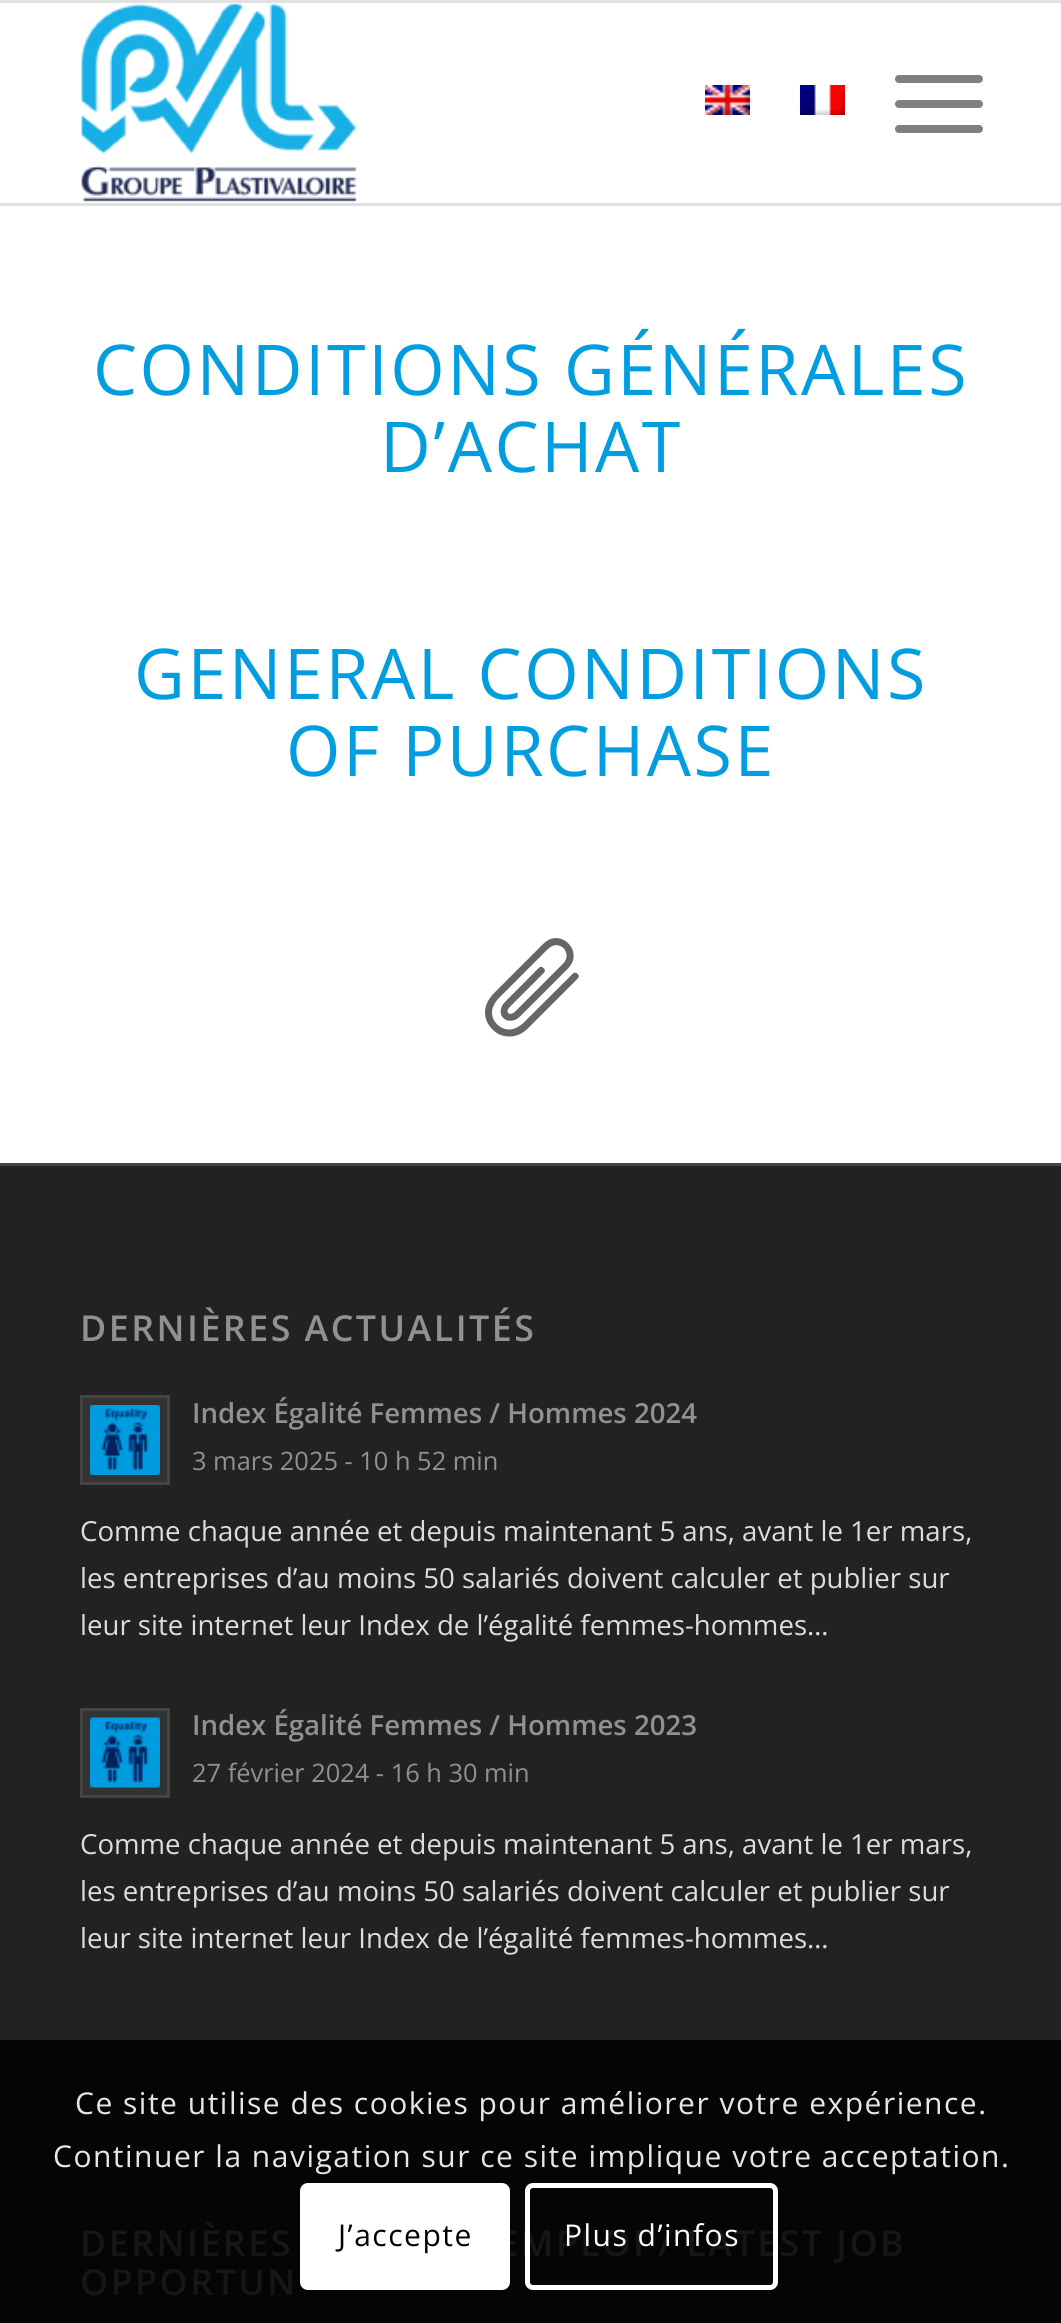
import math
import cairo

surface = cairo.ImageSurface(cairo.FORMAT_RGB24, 1061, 2323)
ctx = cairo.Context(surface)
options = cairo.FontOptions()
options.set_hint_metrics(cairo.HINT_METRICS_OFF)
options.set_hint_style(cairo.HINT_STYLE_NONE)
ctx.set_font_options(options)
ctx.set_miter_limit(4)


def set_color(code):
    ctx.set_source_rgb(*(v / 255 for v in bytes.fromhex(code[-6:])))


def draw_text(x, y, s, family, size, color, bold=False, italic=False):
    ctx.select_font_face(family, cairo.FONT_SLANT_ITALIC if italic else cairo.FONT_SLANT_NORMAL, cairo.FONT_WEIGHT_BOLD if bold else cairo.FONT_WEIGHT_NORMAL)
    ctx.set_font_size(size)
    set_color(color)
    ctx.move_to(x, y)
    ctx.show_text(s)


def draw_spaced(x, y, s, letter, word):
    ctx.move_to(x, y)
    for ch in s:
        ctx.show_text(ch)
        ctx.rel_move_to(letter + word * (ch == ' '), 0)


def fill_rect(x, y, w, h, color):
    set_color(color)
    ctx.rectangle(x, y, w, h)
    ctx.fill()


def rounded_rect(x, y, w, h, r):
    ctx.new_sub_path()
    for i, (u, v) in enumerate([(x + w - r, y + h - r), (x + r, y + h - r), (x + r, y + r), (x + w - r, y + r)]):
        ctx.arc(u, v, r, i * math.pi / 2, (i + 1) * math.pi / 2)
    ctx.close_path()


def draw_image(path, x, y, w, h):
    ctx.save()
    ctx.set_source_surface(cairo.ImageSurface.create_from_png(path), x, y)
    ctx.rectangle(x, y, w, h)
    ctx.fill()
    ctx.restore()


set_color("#ffffff")
ctx.paint()
fill_rect(0, 0, 1061, 3, "#e1e1e1")
fill_rect(0, 203, 1061, 3, "#e1e1e1")
draw_image("assets/img1.png", 81, 3, 276, 199)
draw_image("assets/img2.png", 705, 85, 45, 30)
draw_image("assets/img3.png", 800, 85, 45, 30)
set_color("#808080")
rounded_rect(895, 100, 88, 8, 4)
ctx.fill()
rounded_rect(895, 75, 88, 8, 4)
ctx.fill()
rounded_rect(895, 125, 88, 8, 4)
ctx.fill()
ctx.select_font_face("Open Sans")
ctx.set_font_size(70)
set_color("#009de0")
draw_spaced(93, 395, "CONDITIONS GÉNÉRALES", 2.5, 0)
draw_spaced(380, 472, "D’ACHAT", 2.5, 0)
draw_spaced(134, 699, "GENERAL CONDITIONS", 2.5, 0)
draw_spaced(286, 776, "OF PURCHASE", 2.5, 0)
draw_image("assets/img4.png", 485, 938, 94, 99)
fill_rect(0, 1166, 1061, 874, "#222222")
fill_rect(0, 2040, 1061, 283, "#050505")
fill_rect(0, 1163, 1061, 3, "#444444")
ctx.select_font_face("Open Sans SemiBold")
ctx.set_font_size(35.75)
set_color("#919191")
draw_spaced(80, 1341, "DERNIÈRES ACTUALITÉS", 2.5, 0)
set_color("#333333")
ctx.rectangle(81.5, 1396.5, 87, 87)
ctx.fill_preserve()
set_color("#444444")
ctx.set_line_width(3)
ctx.stroke()
draw_image("assets/img5.png", 90, 1405, 70, 70)
draw_text(192, 1423, "Index Égalité Femmes / Hommes 2024", "Open Sans SemiBold", 27.6, "#919191")
draw_text(192, 1470, "3 mars 2025 - 10 h 52 min", "Open Sans", 25.4, "#919191")
draw_text(80, 1541, "Comme chaque année et depuis maintenant 5 ans, avant le 1er mars,", "Open Sans", 27.6, "#dddddd")
draw_text(80, 1588, "les entreprises d’au moins 50 salariés doivent calculer et publier sur", "Open Sans", 27.6, "#dddddd")
draw_text(80, 1635, "leur site internet leur Index de l’égalité femmes-hommes…", "Open Sans", 27.6, "#dddddd")
set_color("#333333")
ctx.rectangle(81.5, 1709.5, 87, 87)
ctx.fill_preserve()
set_color("#444444")
ctx.stroke()
draw_image("assets/img6.png", 90, 1717, 70, 71)
draw_text(192, 1735, "Index Égalité Femmes / Hommes 2023", "Open Sans SemiBold", 27.6, "#919191")
draw_text(192, 1782, "27 février 2024 - 16 h 30 min", "Open Sans", 25.4, "#919191")
draw_text(80, 1854, "Comme chaque année et depuis maintenant 5 ans, avant le 1er mars,", "Open Sans", 27.6, "#dddddd")
draw_text(80, 1901, "les entreprises d’au moins 50 salariés doivent calculer et publier sur", "Open Sans", 27.6, "#dddddd")
draw_text(80, 1948, "leur site internet leur Index de l’égalité femmes-hommes…", "Open Sans", 27.6, "#dddddd")
ctx.select_font_face("Open Sans SemiBold")
ctx.set_font_size(35.75)
set_color("#161616")
draw_spaced(80, 2256, "DERNIÈRES", 2.5, 0)
draw_spaced(498, 2256, "EMPLOI / LATEST JOB", 2.5, 0)
draw_spaced(80, 2295, "OPPORTUN", 2.5, 0)
ctx.select_font_face("Open Sans")
ctx.set_font_size(30)
set_color("#e6e6e6")
draw_spaced(75, 2114, "Ce site utilise des cookies pour améliorer votre expérience.", 1.5, 0)
draw_spaced(53, 2167, "Continuer la navigation sur ce site implique votre acceptation.", 1.5, 0)
set_color("#ffffff")
rounded_rect(300, 2183, 210, 107, 8)
ctx.fill()
set_color("#000000")
draw_spaced(338, 2246, "J’accepte", 1.5, 0)
rounded_rect(527.5, 2185.5, 248, 102, 5.5)
set_color("#ffffff")
ctx.set_line_width(5)
ctx.stroke()
draw_spaced(564, 2246, "Plus d’infos", 1.5, 0)
surface.write_to_png("output.png")
